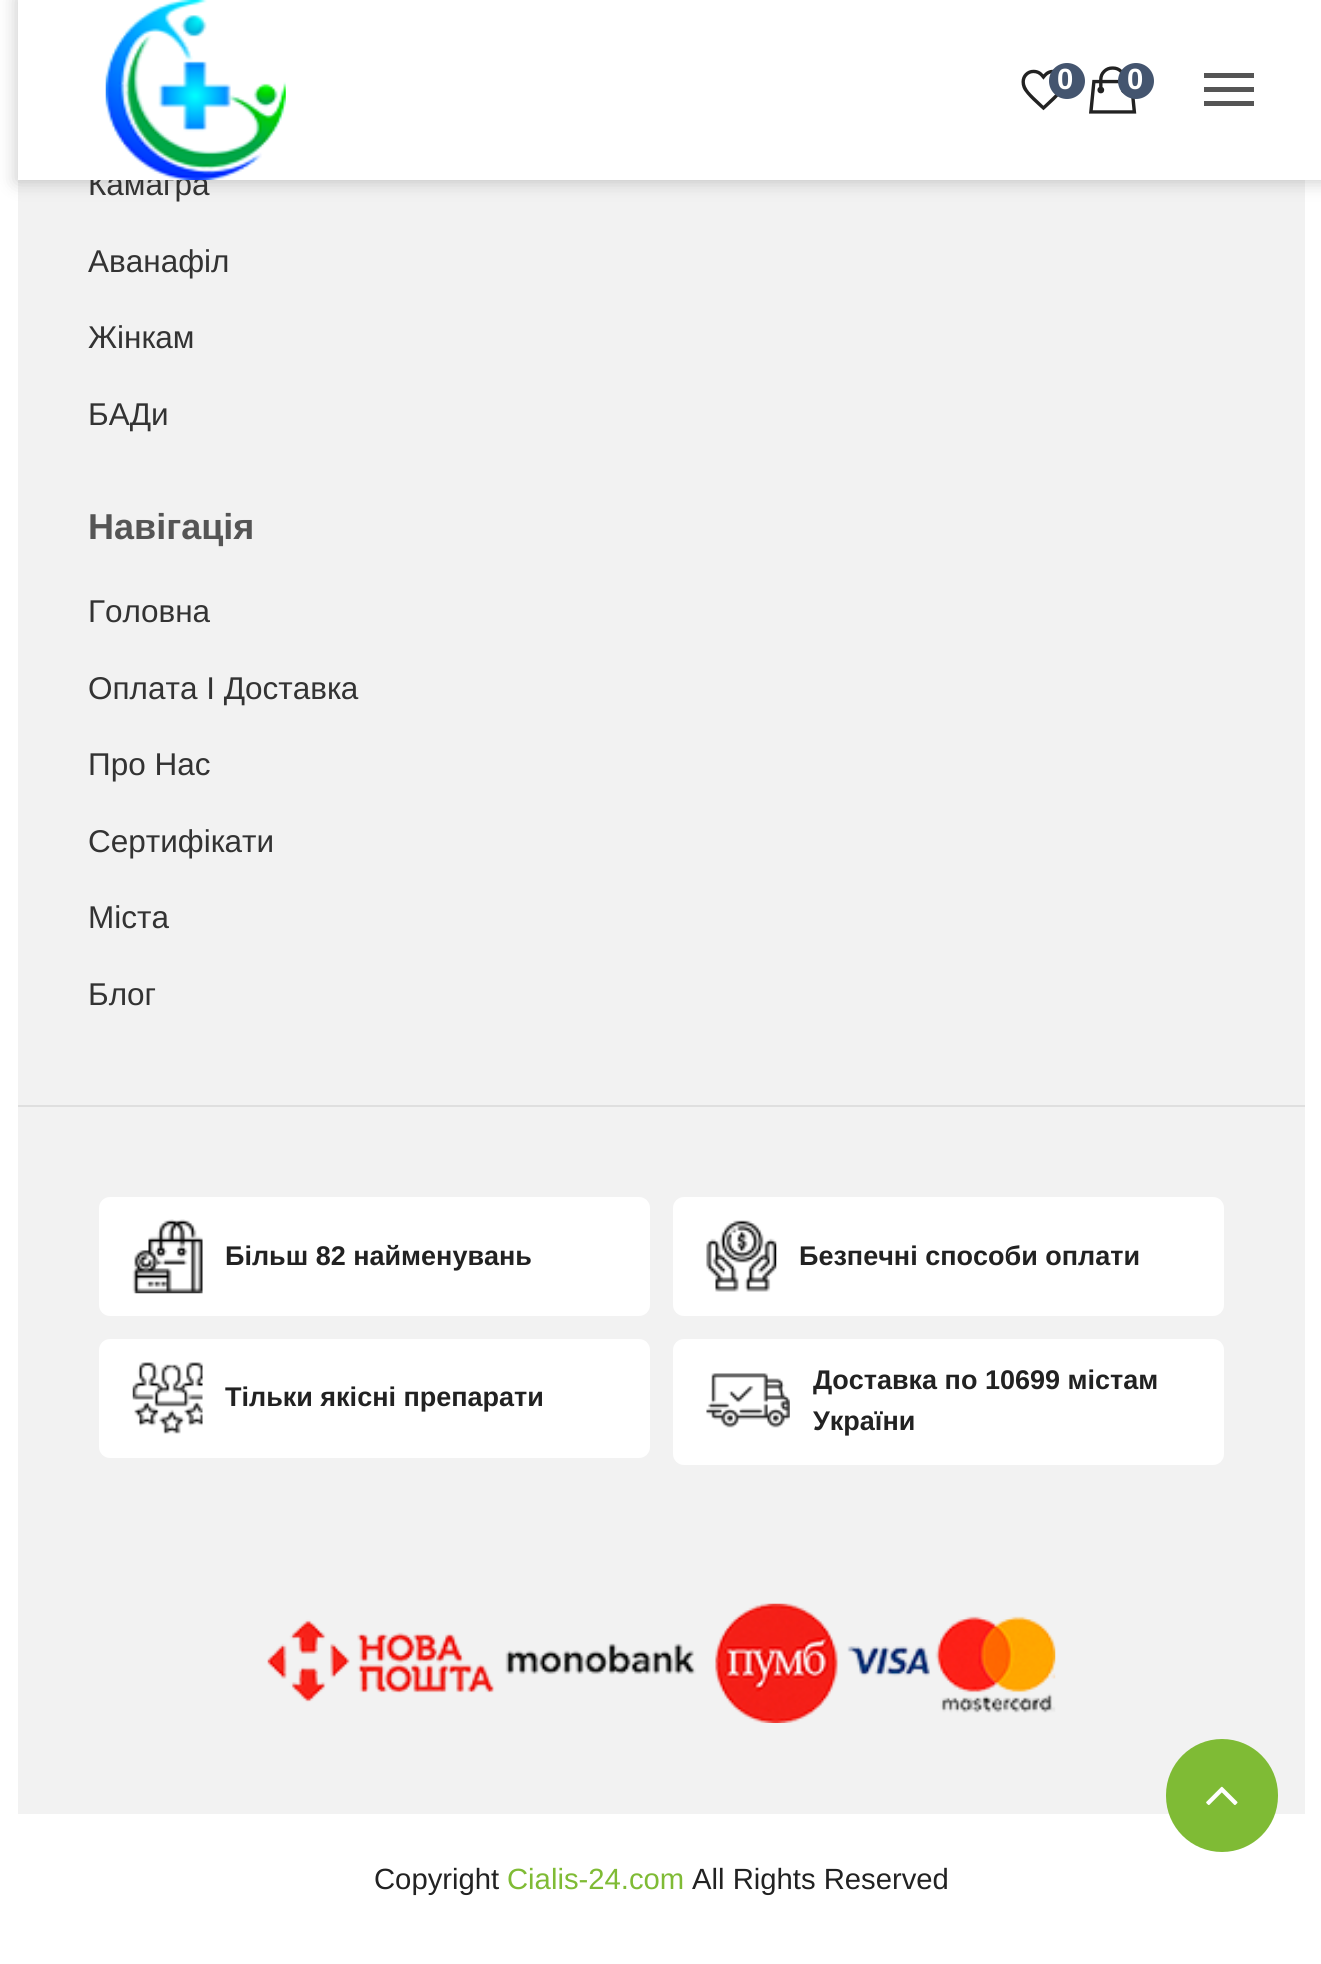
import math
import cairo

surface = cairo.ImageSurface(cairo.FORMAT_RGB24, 1321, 1964)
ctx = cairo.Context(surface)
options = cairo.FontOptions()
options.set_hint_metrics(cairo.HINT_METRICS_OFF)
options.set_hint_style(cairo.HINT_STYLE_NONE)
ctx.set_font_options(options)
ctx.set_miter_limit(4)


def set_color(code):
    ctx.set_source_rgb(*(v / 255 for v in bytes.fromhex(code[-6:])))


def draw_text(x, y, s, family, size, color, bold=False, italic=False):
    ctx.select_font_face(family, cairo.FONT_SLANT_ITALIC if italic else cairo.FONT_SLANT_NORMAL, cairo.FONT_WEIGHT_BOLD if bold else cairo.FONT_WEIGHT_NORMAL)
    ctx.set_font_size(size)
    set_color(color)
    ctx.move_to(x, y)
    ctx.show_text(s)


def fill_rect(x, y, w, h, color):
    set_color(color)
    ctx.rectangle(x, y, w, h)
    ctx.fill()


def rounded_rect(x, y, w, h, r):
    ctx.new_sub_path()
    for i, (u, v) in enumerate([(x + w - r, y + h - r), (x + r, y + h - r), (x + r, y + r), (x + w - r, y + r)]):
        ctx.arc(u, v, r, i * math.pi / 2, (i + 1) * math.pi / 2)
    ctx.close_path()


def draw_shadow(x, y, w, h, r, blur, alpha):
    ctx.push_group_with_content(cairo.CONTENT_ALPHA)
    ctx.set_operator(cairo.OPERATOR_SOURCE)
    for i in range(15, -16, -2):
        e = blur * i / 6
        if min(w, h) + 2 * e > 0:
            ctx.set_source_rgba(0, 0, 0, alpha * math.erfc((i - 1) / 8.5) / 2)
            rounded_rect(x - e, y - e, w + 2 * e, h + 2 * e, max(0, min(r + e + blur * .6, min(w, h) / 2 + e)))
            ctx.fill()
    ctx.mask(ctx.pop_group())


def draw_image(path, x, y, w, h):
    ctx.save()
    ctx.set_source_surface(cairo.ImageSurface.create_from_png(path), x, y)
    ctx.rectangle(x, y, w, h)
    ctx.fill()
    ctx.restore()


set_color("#ffffff")
ctx.paint()
fill_rect(18, 180, 1287, 925, "#f2f2f2")
set_color("#000000")
draw_shadow(16, -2, 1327, 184, 0, 9, 0.2)
draw_text(88, 195, "Камагра", "Liberation Sans", 31.5, "#333333")
fill_rect(18, 0, 1303, 180, "#ffffff")
draw_image("assets/img1.png", 105, 0, 181, 180)
draw_image("assets/img2.png", 1021, 69, 38, 42)
set_color("#44556f")
ctx.arc(1067, 81, 18, 0, 2 * math.pi)
ctx.fill()
draw_text(1057, 89, "0", "Liberation Sans", 29.25, "#ffffff", bold=True)
draw_image("assets/img3.png", 1089, 66, 48, 48)
set_color("#44556f")
ctx.arc(1136, 81, 18, 0, 2 * math.pi)
ctx.fill()
draw_text(1127, 89, "0", "Liberation Sans", 29.25, "#ffffff", bold=True)
set_color("#555555")
ctx.new_path()
ctx.move_to(1204, 106)
ctx.line_to(1204, 101)
ctx.line_to(1254, 101)
ctx.line_to(1254, 106)
ctx.close_path()
ctx.move_to(1204, 92)
ctx.line_to(1204, 87)
ctx.line_to(1254, 87)
ctx.line_to(1254, 92)
ctx.close_path()
ctx.move_to(1204, 73)
ctx.line_to(1254, 73)
ctx.line_to(1254, 78)
ctx.line_to(1204, 78)
ctx.close_path()
ctx.fill()
fill_rect(18, 1105, 1287, 2, "#dfdfdf")
draw_text(88, 272, "Аванафіл", "Liberation Sans", 31.5, "#333333")
draw_text(88, 348, "Жінкам", "Liberation Sans", 31.5, "#333333")
draw_text(88, 425, "БАДи", "Liberation Sans", 31.5, "#333333")
draw_text(88, 539, "Навігація", "Liberation Sans", 36, "#555555", bold=True)
draw_text(88, 622, "Головна", "Liberation Sans", 31.5, "#333333")
draw_text(88, 699, "Оплата І Доставка", "Liberation Sans", 31.5, "#333333")
draw_text(88, 775, "Про Нас", "Liberation Sans", 31.5, "#333333")
draw_text(88, 852, "Сертифікати", "Liberation Sans", 31.5, "#333333")
draw_text(88, 928, "Міста", "Liberation Sans", 31.5, "#333333")
draw_text(88, 1005, "Блог", "Liberation Sans", 31.5, "#333333")
fill_rect(18, 1107, 1287, 707, "#f2f2f2")
set_color("#ffffff")
rounded_rect(99, 1197, 551, 119, 11)
ctx.fill()
draw_image("assets/img4.png", 132, 1219, 71, 75)
draw_text(225, 1265, "Більш 82 найменувань", "Liberation Sans", 27, "#222222", bold=True)
set_color("#ffffff")
rounded_rect(673, 1197, 551, 119, 11)
ctx.fill()
draw_image("assets/img5.png", 706, 1220, 71, 72)
draw_text(799, 1265, "Безпечні способи оплати", "Liberation Sans", 27, "#222222", bold=True)
set_color("#ffffff")
rounded_rect(99, 1339, 551, 119, 11)
ctx.fill()
draw_image("assets/img6.png", 132, 1362, 71, 72)
draw_text(225, 1406, "Тільки якісні препарати", "Liberation Sans", 27, "#222222", bold=True)
set_color("#ffffff")
rounded_rect(673, 1339, 551, 126, 11)
ctx.fill()
draw_image("assets/img7.png", 706, 1373, 84, 55)
draw_text(813, 1389, "Доставка по 10699 містам", "Liberation Sans", 27, "#222222", bold=True)
draw_text(813, 1430, "України", "Liberation Sans", 27, "#222222", bold=True)
draw_image("assets/img8.png", 267, 1603, 789, 120)
draw_text(374, 1889, "Copyright", "Liberation Sans", 29.25, "#222222")
draw_text(507, 1889, "Cialis-24.com", "Liberation Sans", 29.25, "#7fbb35")
draw_text(692, 1889, "All Rights Reserved", "Liberation Sans", 29.25, "#222222")
set_color("#7fbb35")
rounded_rect(1166, 1739, 112, 113, 56)
ctx.fill()
draw_image("assets/img9.png", 1206, 1786, 32, 19)
surface.write_to_png("output.png")
